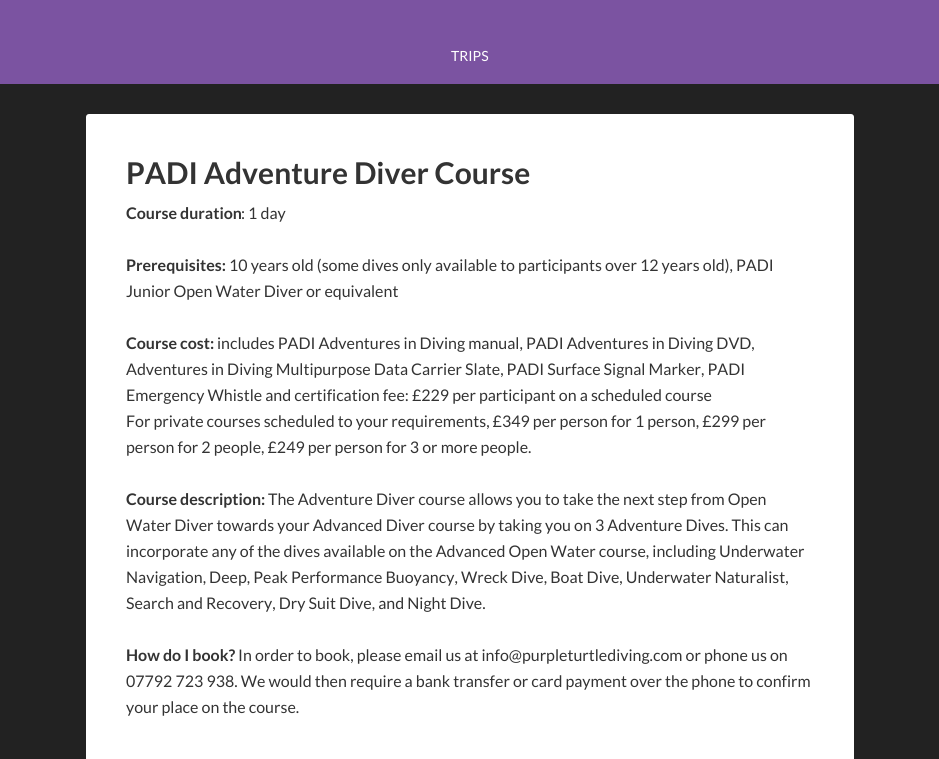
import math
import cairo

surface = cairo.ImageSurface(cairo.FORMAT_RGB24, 939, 759)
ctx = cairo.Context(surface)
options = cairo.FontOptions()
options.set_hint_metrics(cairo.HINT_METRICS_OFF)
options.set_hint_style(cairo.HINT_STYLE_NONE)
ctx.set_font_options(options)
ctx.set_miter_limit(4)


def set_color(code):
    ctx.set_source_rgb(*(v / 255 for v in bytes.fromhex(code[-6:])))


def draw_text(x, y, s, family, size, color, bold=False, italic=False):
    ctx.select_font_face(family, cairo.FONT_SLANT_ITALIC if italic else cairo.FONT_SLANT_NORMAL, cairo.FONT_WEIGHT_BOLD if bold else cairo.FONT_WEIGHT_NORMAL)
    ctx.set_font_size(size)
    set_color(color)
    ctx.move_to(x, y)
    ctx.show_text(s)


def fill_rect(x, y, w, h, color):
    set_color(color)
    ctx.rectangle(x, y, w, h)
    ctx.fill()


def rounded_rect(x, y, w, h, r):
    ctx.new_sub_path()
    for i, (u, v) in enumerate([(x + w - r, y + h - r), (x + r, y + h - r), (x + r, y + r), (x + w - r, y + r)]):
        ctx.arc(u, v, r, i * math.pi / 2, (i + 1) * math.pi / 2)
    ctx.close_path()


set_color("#222222")
ctx.paint()
fill_rect(0, 0, 939, 84, "#7b53a1")
draw_text(451, 61, "TRIPS", "Lato", 14, "#ffffff")
rounded_rect(86, 114, 768, 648, 3)
ctx.fill()
draw_text(126, 184, "PADI Adventure Diver Course", "Lato", 30, "#333333", bold=True)
draw_text(126, 219, "Course duration", "Lato", 16, "#333333", bold=True)
draw_text(241, 219, ": 1 day", "Lato", 16, "#333333")
draw_text(126, 271, "Prerequisites:", "Lato", 16, "#333333", bold=True)
draw_text(229, 271, "10 years old (some dives only available to participants over 12 years old), PADI", "Lato", 16, "#333333")
draw_text(126, 297, "Junior Open Water Diver or equivalent", "Lato", 16, "#333333")
draw_text(126, 349, "Course cost:", "Lato", 16, "#333333", bold=True)
draw_text(217, 349, "includes PADI Adventures in Diving manual, PADI Adventures in Diving DVD,", "Lato", 16, "#333333")
draw_text(126, 375, "Adventures in Diving Multipurpose Data Carrier Slate, PADI Surface Signal Marker, PADI", "Lato", 16, "#333333")
draw_text(126, 401, "Emergency Whistle and certification fee: £229 per participant on a scheduled course", "Lato", 16, "#333333")
draw_text(126, 427, "For private courses scheduled to your requirements, £349 per person for 1 person, £299 per", "Lato", 16, "#333333")
draw_text(126, 453, "person for 2 people, £249 per person for 3 or more people.", "Lato", 16, "#333333")
draw_text(126, 505, "Course description:", "Lato", 16, "#333333", bold=True)
draw_text(268, 505, "The Adventure Diver course allows you to take the next step from Open", "Lato", 16, "#333333")
draw_text(126, 531, "Water Diver towards your Advanced Diver course by taking you on 3 Adventure Dives. This can", "Lato", 16, "#333333")
draw_text(126, 557, "incorporate any of the dives available on the Advanced Open Water course, including Underwater", "Lato", 16, "#333333")
draw_text(126, 583, "Navigation, Deep, Peak Performance Buoyancy, Wreck Dive, Boat Dive, Underwater Naturalist,", "Lato", 16, "#333333")
draw_text(126, 609, "Search and Recovery, Dry Suit Dive, and Night Dive.", "Lato", 16, "#333333")
draw_text(126, 661, "How do I book?", "Lato", 16, "#333333", bold=True)
draw_text(238, 661, "In order to book, please email us at info@purpleturtlediving.com or phone us on", "Lato", 16, "#333333")
draw_text(126, 687, "07792 723 938. We would then require a bank transfer or card payment over the phone to confirm", "Lato", 16, "#333333")
draw_text(126, 713, "your place on the course.", "Lato", 16, "#333333")
surface.write_to_png("output.png")
